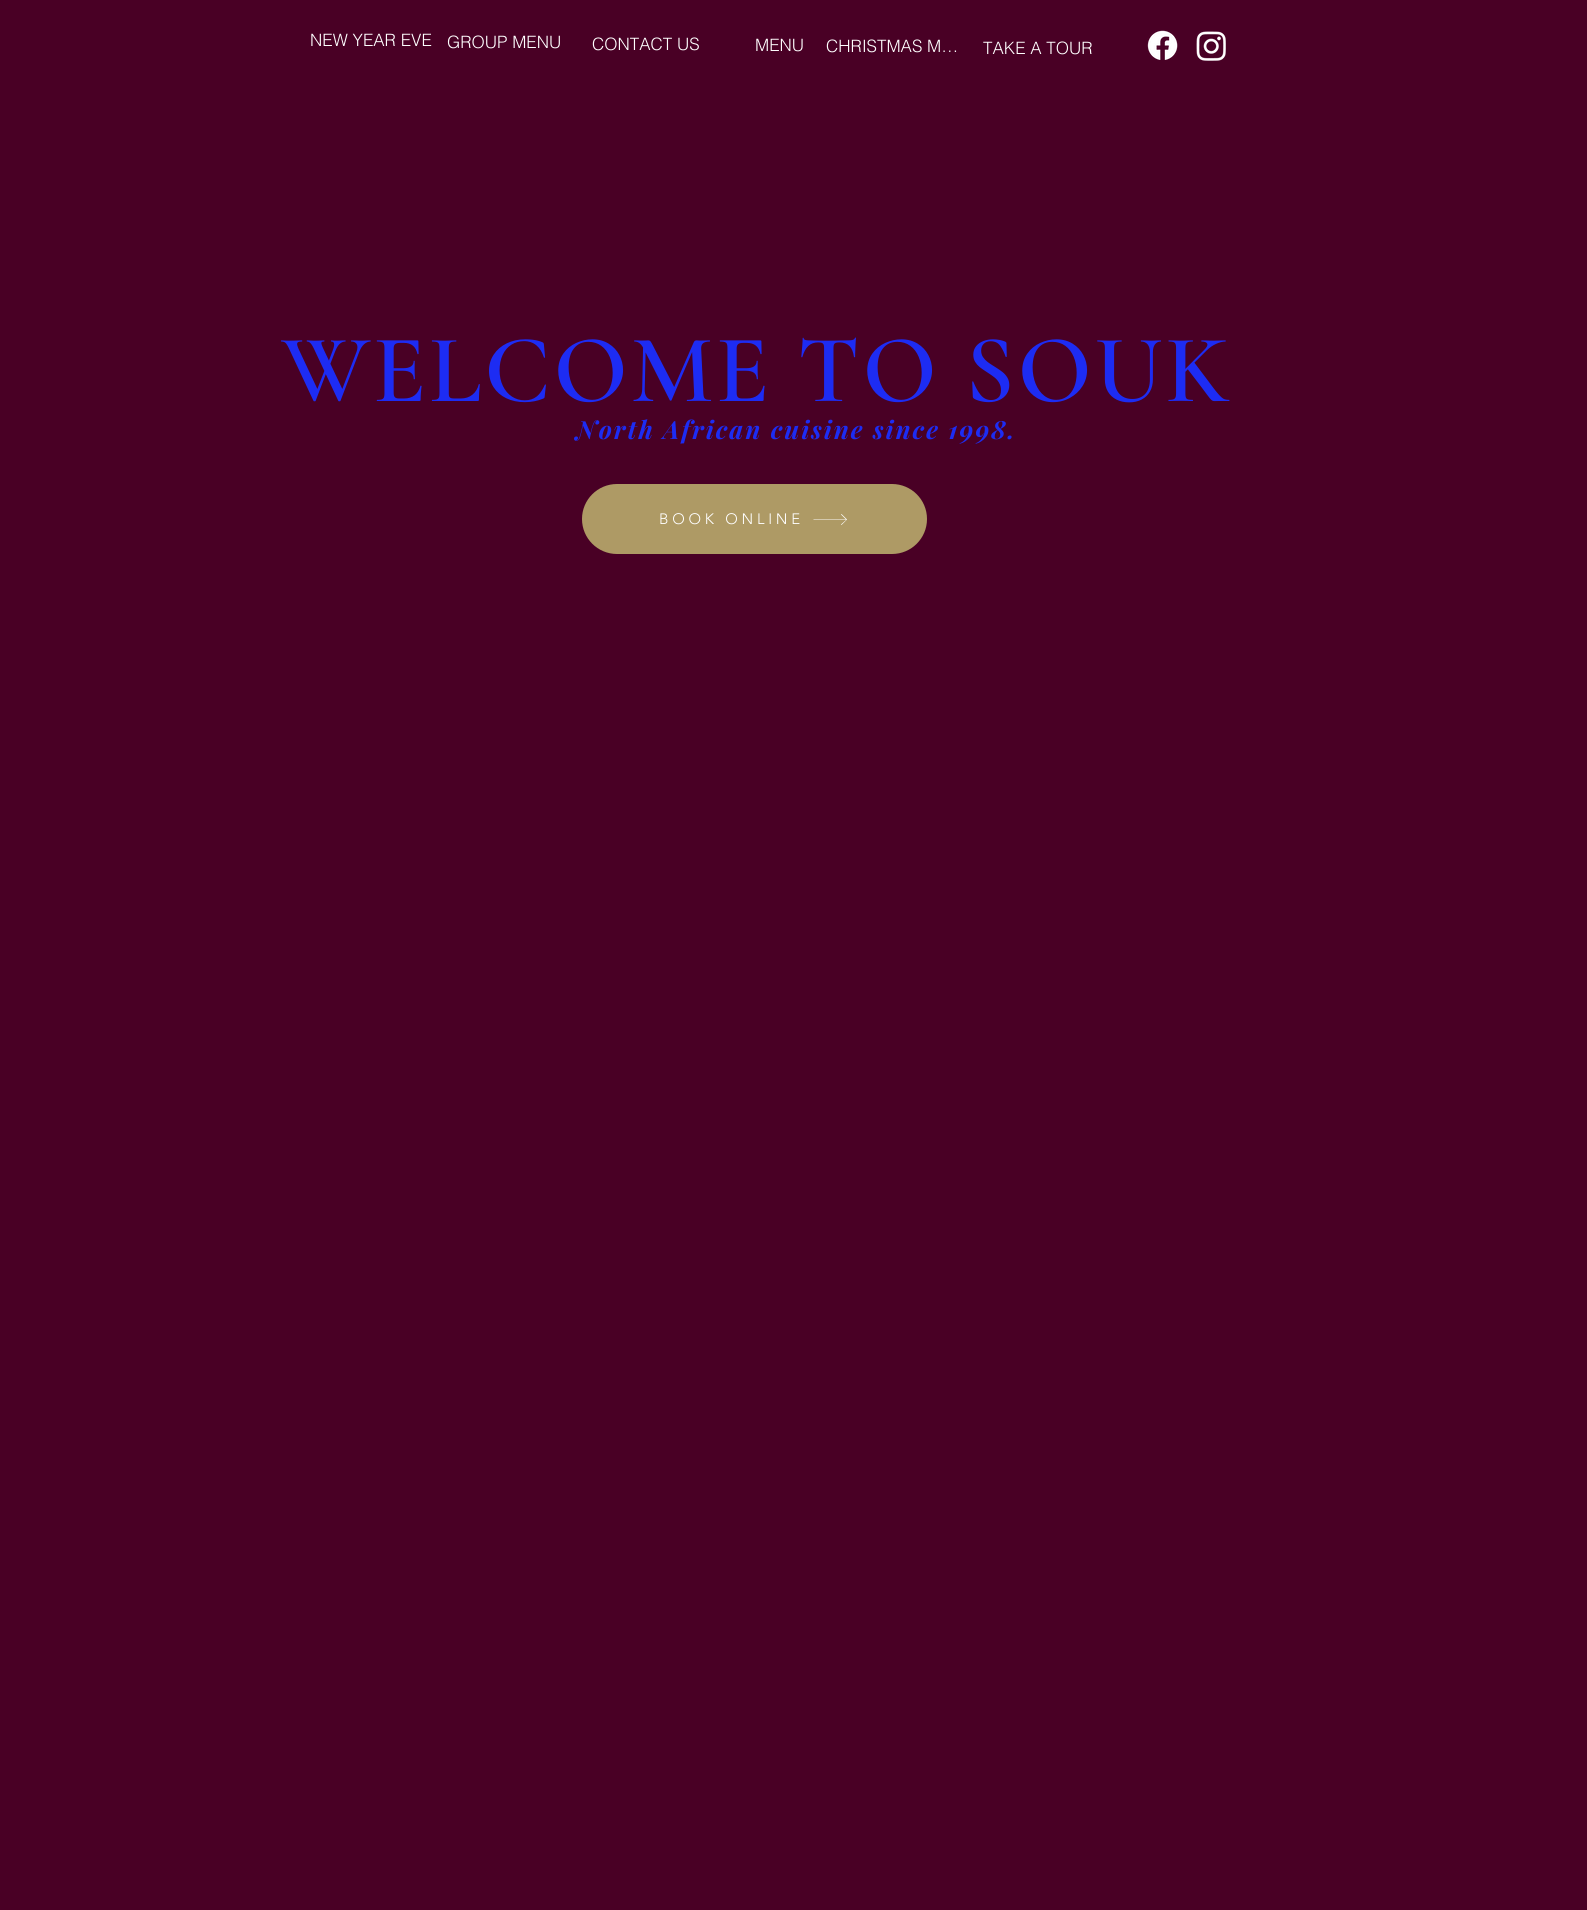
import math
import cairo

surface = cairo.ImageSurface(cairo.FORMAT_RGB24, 1587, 1910)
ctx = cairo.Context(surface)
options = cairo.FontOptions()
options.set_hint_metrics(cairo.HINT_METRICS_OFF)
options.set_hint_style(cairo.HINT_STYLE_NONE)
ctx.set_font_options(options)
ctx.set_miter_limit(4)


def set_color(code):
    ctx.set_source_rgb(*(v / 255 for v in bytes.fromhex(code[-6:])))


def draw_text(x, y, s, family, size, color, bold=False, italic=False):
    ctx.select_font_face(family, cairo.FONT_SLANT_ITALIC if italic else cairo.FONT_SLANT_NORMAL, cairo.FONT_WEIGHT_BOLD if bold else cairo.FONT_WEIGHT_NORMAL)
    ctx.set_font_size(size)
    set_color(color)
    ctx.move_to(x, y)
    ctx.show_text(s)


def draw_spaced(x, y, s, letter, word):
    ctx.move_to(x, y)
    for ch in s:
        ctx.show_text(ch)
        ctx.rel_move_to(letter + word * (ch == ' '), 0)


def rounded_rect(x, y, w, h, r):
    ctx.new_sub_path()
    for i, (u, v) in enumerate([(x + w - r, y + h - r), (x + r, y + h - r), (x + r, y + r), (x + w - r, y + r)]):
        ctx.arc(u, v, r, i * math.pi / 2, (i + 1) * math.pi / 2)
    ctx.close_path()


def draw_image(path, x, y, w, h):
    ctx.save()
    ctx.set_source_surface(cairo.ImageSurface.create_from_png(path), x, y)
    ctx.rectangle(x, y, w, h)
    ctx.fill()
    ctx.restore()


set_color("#490025")
ctx.paint()
draw_text(310, 46, "NEW YEAR EVE", "helvetica Light", 17, "#ffffff")
draw_text(447, 48, "GROUP MENU", "helvetica Light", 17, "#ffffff")
draw_text(592, 50, "CONTACT US", "helvetica Light", 17, "#ffffff")
draw_text(755, 51, "MENU", "helvetica Light", 17, "#ffffff")
draw_text(826, 52, "CHRISTMAS M…", "helvetica Light", 17, "#ffffff")
draw_text(983, 54, "TAKE A TOUR", "helvetica Light", 17, "#ffffff")
draw_image("assets/img1.png", 1147, 30, 31, 30)
draw_image("assets/img2.png", 1196, 31, 30, 30)
ctx.select_font_face("Cormorant Garamond SemiBold")
ctx.set_font_size(97)
set_color("#1d2cf3")
draw_spaced(281, 401, "WELCOME TO SOUK", 2.9, 0)
ctx.select_font_face("Playfair Display", cairo.FONT_SLANT_ITALIC, cairo.FONT_WEIGHT_BOLD)
ctx.set_font_size(25)
draw_spaced(576, 439, "North African cuisine since 1998.", 2, 0)
set_color("#ae9a65")
rounded_rect(582, 484, 345, 70, 35)
ctx.fill()
ctx.select_font_face("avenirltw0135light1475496 Light")
ctx.set_font_size(15)
set_color("#ffffff")
draw_spaced(659, 524, "BOOK ONLINE", 3.75, 0)
ctx.new_path()
ctx.move_to(841.5, 514)
ctx.line_to(841, 514.5)
ctx.line_to(846, 519.5)
ctx.line_to(813.5, 519.5)
ctx.line_to(813.5, 520)
ctx.line_to(846, 520)
ctx.line_to(841, 524.5)
ctx.line_to(841.5, 525)
ctx.line_to(847, 519.5)
ctx.close_path()
ctx.fill()
surface.write_to_png("output.png")
